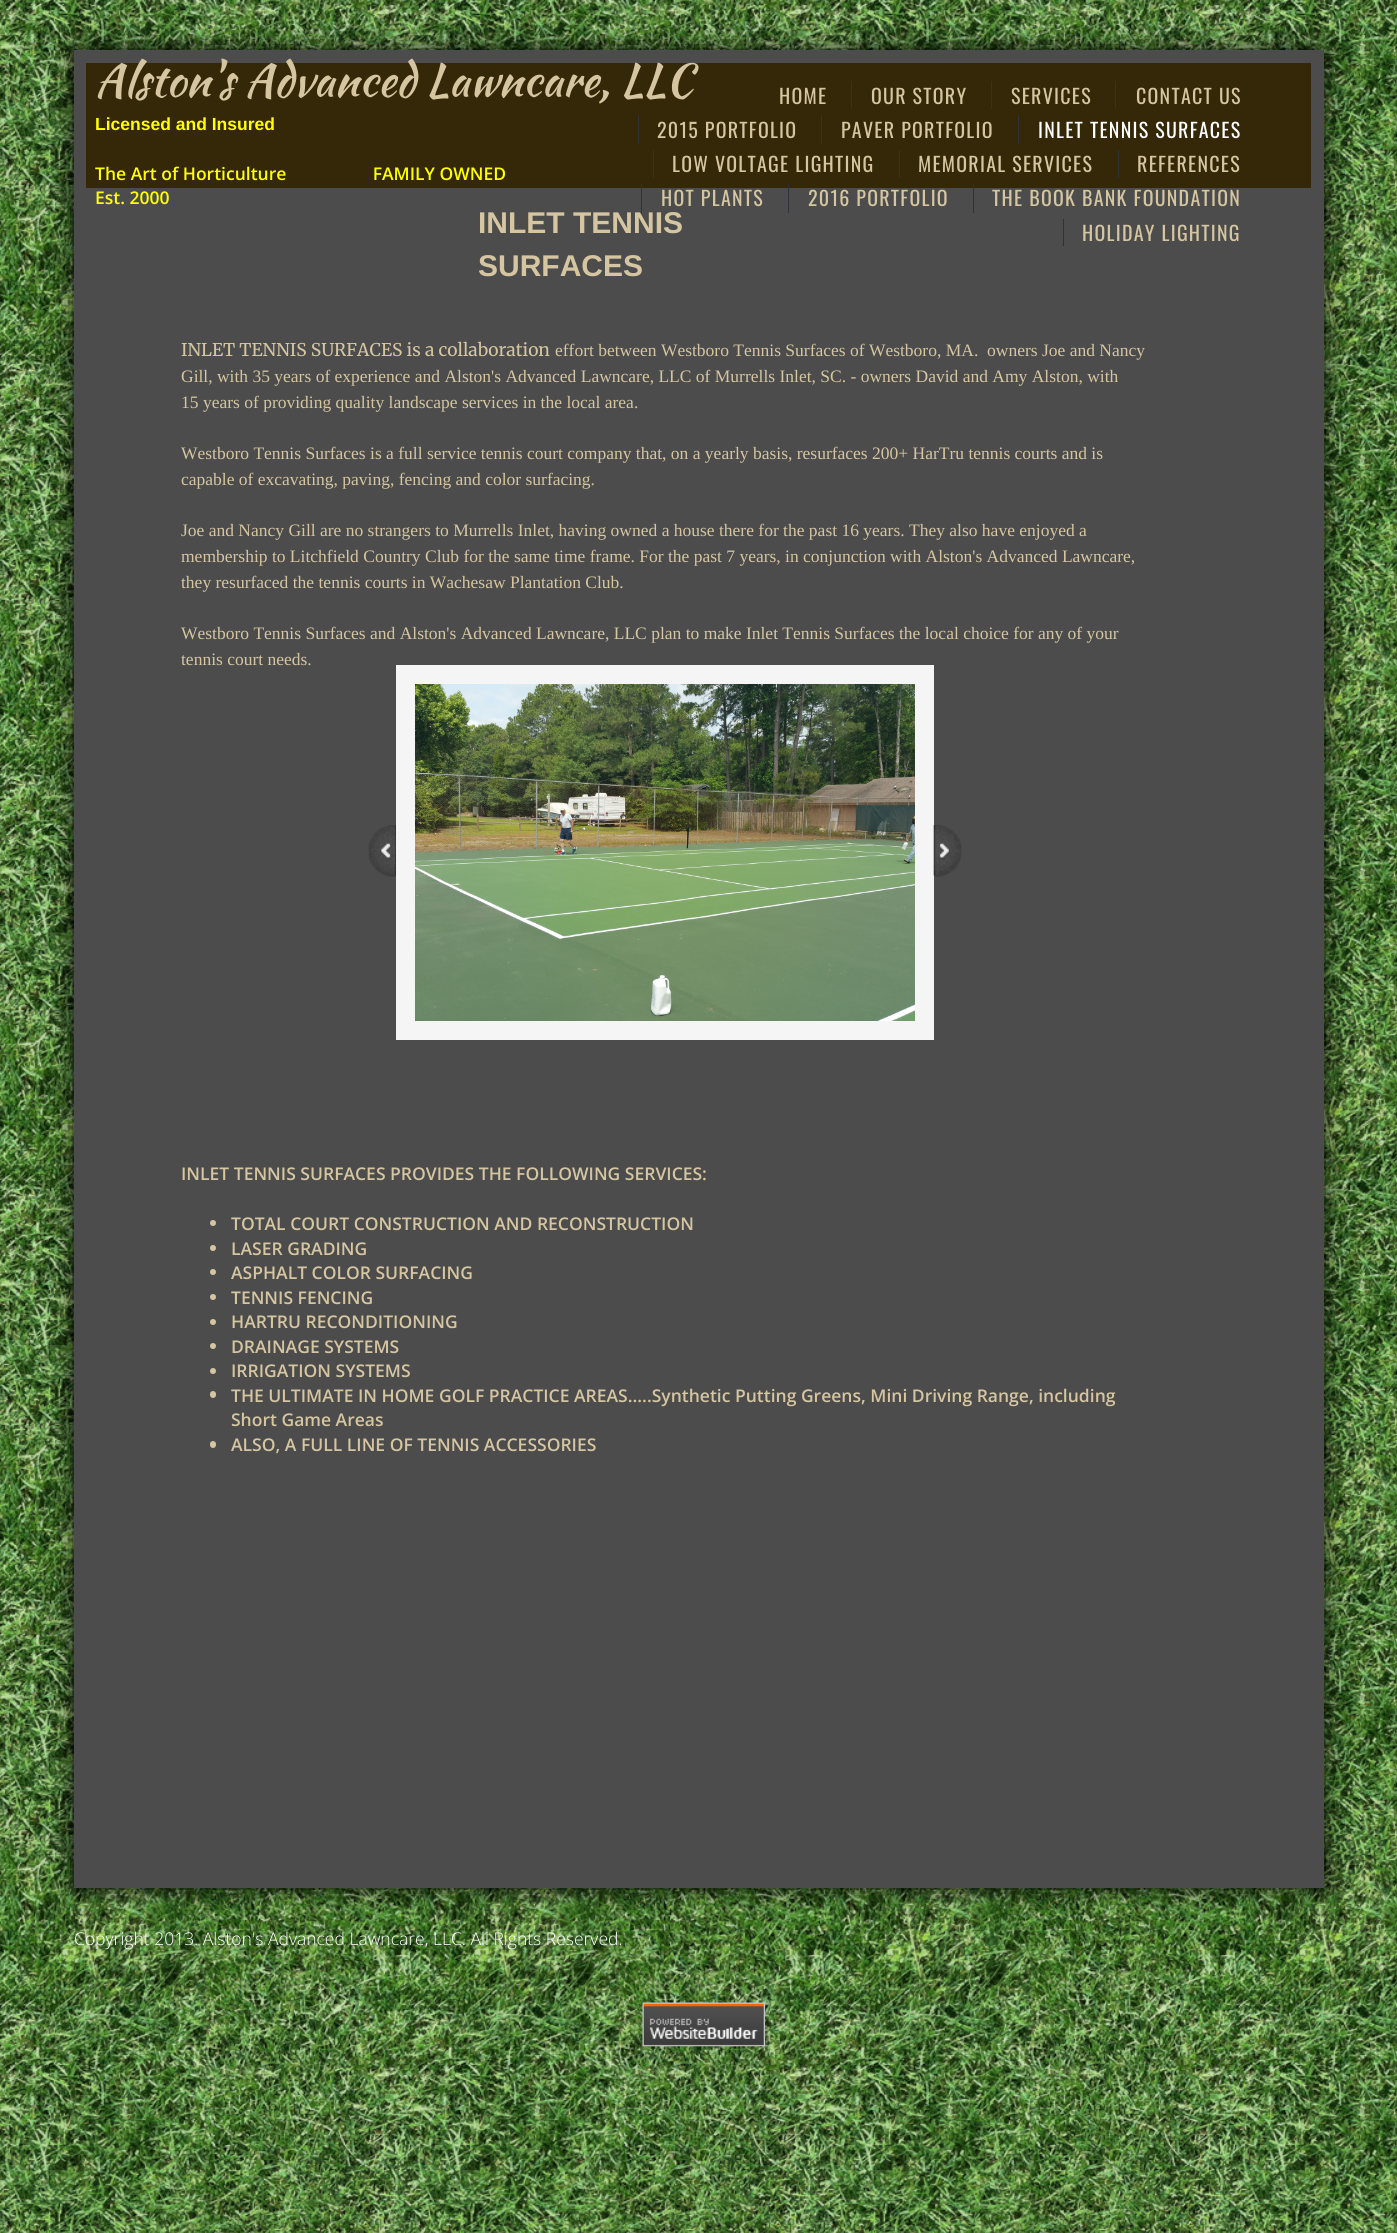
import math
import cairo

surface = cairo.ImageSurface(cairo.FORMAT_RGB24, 1397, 2233)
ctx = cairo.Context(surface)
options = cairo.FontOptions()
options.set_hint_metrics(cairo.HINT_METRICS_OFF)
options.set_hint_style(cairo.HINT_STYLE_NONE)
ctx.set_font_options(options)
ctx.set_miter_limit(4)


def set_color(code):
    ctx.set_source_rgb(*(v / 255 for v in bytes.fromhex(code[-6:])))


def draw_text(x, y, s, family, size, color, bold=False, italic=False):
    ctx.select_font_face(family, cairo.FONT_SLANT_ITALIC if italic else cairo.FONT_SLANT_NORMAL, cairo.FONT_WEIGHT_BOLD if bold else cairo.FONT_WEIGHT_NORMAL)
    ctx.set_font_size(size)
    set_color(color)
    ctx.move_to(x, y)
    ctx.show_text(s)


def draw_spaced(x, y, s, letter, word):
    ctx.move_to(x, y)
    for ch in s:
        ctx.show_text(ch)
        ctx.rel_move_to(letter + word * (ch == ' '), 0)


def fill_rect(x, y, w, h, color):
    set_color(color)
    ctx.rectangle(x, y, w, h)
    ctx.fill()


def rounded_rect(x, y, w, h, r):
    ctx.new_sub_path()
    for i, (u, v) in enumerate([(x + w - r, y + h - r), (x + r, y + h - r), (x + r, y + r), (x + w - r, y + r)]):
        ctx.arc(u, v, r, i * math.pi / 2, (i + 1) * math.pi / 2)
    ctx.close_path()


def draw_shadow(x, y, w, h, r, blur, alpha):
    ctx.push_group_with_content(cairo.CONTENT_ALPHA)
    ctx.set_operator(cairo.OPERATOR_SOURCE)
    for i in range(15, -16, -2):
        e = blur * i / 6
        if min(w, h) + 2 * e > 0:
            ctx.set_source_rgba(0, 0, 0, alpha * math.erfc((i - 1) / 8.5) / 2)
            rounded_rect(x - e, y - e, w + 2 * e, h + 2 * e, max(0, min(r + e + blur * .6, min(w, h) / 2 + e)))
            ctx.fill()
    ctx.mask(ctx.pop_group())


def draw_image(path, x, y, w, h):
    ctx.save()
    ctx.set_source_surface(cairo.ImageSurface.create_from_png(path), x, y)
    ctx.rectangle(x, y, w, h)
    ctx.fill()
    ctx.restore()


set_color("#ffffff")
ctx.paint()
draw_image("assets/img1.png", 0, 0, 1397, 2233)
set_color("#000000")
draw_shadow(74, 50, 1250, 1838, 0, 12.5, 1)
fill_rect(74, 50, 1250, 1838, "#4c4c4c")
fill_rect(86, 63, 1225, 125, "#352808")
draw_text(95, 96, "Alston's Advanced Lawncare, LLC", "Kaushan Script", 45, "#d5c6a1")
draw_text(95, 130, "Licensed and Insured", "Liberation Sans", 17.5, "#ffff00", bold=True)
draw_text(95, 180, "The Art of Horticulture                   FAMILY OWNED", "Open Sans SemiBold", 17.5, "#ffff00")
draw_text(95, 204, "Est. 2000", "Open Sans SemiBold", 17.5, "#ffff00")
fill_rect(641, 184, 1, 29, "#31313a")
draw_text(478, 233, "INLET TENNIS", "Liberation Sans", 30, "#d5c6a1", bold=True)
draw_text(478, 276, "SURFACES", "Liberation Sans", 30, "#d5c6a1", bold=True)
ctx.select_font_face("Oswald")
ctx.set_font_size(20)
draw_spaced(779, 104, "HOME", 1.25, 0)
fill_rect(851, 81, 1, 28, "#31313a")
set_color("#d5c6a1")
draw_spaced(871, 104, "OUR STORY", 1.25, 0)
fill_rect(991, 81, 1, 28, "#31313a")
set_color("#d5c6a1")
draw_spaced(1011, 104, "SERVICES", 1.25, 0)
fill_rect(1115, 81, 1, 28, "#31313a")
set_color("#d5c6a1")
draw_spaced(1136, 104, "CONTACT US", 1.25, 0)
fill_rect(638, 115, 1, 29, "#31313a")
set_color("#d5c6a1")
draw_spaced(657, 138, "2015 PORTFOLIO", 1.25, 0)
fill_rect(821, 115, 1, 29, "#31313a")
set_color("#d5c6a1")
draw_spaced(841, 138, "PAVER PORTFOLIO", 1.25, 0)
fill_rect(1018, 115, 1, 29, "#31313a")
set_color("#ffffff")
draw_spaced(1038, 138, "INLET TENNIS SURFACES", 1.25, 0)
fill_rect(653, 150, 1, 28, "#31313a")
set_color("#d5c6a1")
draw_spaced(672, 172, "LOW VOLTAGE LIGHTING", 1.25, 0)
fill_rect(899, 150, 1, 28, "#31313a")
set_color("#d5c6a1")
draw_spaced(918, 172, "MEMORIAL SERVICES", 1.25, 0)
fill_rect(1118, 150, 1, 28, "#31313a")
set_color("#d5c6a1")
draw_spaced(1137, 172, "REFERENCES", 1.25, 0)
draw_spaced(661, 206, "HOT PLANTS", 1.25, 0)
fill_rect(788, 184, 1, 29, "#31313a")
set_color("#d5c6a1")
draw_spaced(808, 206, "2016 PORTFOLIO", 1.25, 0)
fill_rect(973, 184, 1, 29, "#31313a")
set_color("#d5c6a1")
draw_spaced(992, 206, "THE BOOK BANK FOUNDATION", 1.25, 0)
fill_rect(1063, 219, 1, 27, "#31313a")
set_color("#d5c6a1")
draw_spaced(1082, 241, "HOLIDAY LIGHTING", 1.25, 0)
draw_text(181, 356, "INLET TENNIS SURFACES is a collaboration", "Merriweather Light", 17.5, "#d5c6a1")
draw_text(555, 356, "effort between Westboro Tennis Surfaces of Westboro, MA.  owners Joe and Nancy", "Liberation Serif", 17.5, "#d5c6a1")
draw_text(181, 382, "Gill, with 35 years of experience and Alston's Advanced Lawncare, LLC of Murrells Inlet, SC. - owners David and Amy Alston, with", "Liberation Serif", 17.5, "#d5c6a1")
draw_text(181, 408, "15 years of providing quality landscape services in the local area.", "Liberation Serif", 17.5, "#d5c6a1")
draw_text(181, 459, "Westboro Tennis Surfaces is a full service tennis court company that, on a yearly basis, resurfaces 200+ HarTru tennis courts and is", "Liberation Serif", 17.5, "#d5c6a1")
draw_text(181, 485, "capable of excavating, paving, fencing and color surfacing.", "Liberation Serif", 17.5, "#d5c6a1")
draw_text(181, 536, "Joe and Nancy Gill are no strangers to Murrells Inlet, having owned a house there for the past 16 years. They also have enjoyed a", "Liberation Serif", 17.5, "#d5c6a1")
draw_text(181, 562, "membership to Litchfield Country Club for the same time frame. For the past 7 years, in conjunction with Alston's Advanced Lawncare,", "Liberation Serif", 17.5, "#d5c6a1")
draw_text(181, 588, "they resurfaced the tennis courts in Wachesaw Plantation Club.", "Liberation Serif", 17.5, "#d5c6a1")
draw_text(181, 639, "Westboro Tennis Surfaces and Alston's Advanced Lawncare, LLC plan to make Inlet Tennis Surfaces the local choice for any of your", "Liberation Serif", 17.5, "#d5c6a1")
draw_text(181, 665, "tennis court needs.", "Liberation Serif", 17.5, "#d5c6a1")
draw_text(181, 1180, "INLET TENNIS SURFACES PROVIDES THE FOLLOWING SERVICES:", "Open Sans SemiBold", 17.5, "#d5c6a1")
ctx.new_path()
ctx.arc(213, 1223, 3, 0, 2 * math.pi)
ctx.fill()
draw_text(231, 1230, "TOTAL COURT CONSTRUCTION AND RECONSTRUCTION", "Open Sans SemiBold", 17.5, "#d5c6a1")
ctx.new_path()
ctx.arc(213, 1248, 3, 0, 2 * math.pi)
ctx.fill()
draw_text(231, 1255, "LASER GRADING", "Open Sans SemiBold", 17.5, "#d5c6a1")
ctx.new_path()
ctx.arc(213, 1272, 3, 0, 2 * math.pi)
ctx.fill()
draw_text(231, 1279, "ASPHALT COLOR SURFACING", "Open Sans SemiBold", 17.5, "#d5c6a1")
ctx.new_path()
ctx.arc(213, 1297, 3, 0, 2 * math.pi)
ctx.fill()
draw_text(231, 1304, "TENNIS FENCING", "Open Sans SemiBold", 17.5, "#d5c6a1")
ctx.new_path()
ctx.arc(213, 1322, 3, 0, 2 * math.pi)
ctx.fill()
draw_text(231, 1328, "HARTRU RECONDITIONING", "Open Sans SemiBold", 17.5, "#d5c6a1")
ctx.new_path()
ctx.arc(213, 1346, 3, 0, 2 * math.pi)
ctx.fill()
draw_text(231, 1353, "DRAINAGE SYSTEMS", "Open Sans SemiBold", 17.5, "#d5c6a1")
ctx.new_path()
ctx.arc(213, 1371, 3, 0, 2 * math.pi)
ctx.fill()
draw_text(231, 1377, "IRRIGATION SYSTEMS", "Open Sans SemiBold", 17.5, "#d5c6a1")
rounded_rect(210, 1391, 6, 7, 3)
ctx.fill()
draw_text(231, 1402, "THE ULTIMATE IN HOME GOLF PRACTICE AREAS.....Synthetic Putting Greens, Mini Driving Range, including", "Open Sans SemiBold", 17.5, "#d5c6a1")
draw_text(231, 1426, "Short Game Areas", "Open Sans SemiBold", 17.5, "#d5c6a1")
rounded_rect(210, 1441, 6, 7, 3)
ctx.fill()
draw_text(231, 1451, "ALSO, A FULL LINE OF TENNIS ACCESSORIES", "Open Sans SemiBold", 17.5, "#d5c6a1")
draw_image("assets/img2.png", 368, 825, 28, 52)
ctx.rectangle(405.5, 674.5, 519, 356)
set_color("#f5f5f5")
ctx.set_line_width(19)
ctx.stroke()
draw_image("assets/img3.png", 415, 684, 500, 337)
draw_image("assets/img4.png", 933, 825, 29, 52)
draw_text(74, 1945, "Copyright 2013. Alston's Advanced Lawncare, LLC. All Rights Reserved.", "Open Sans Light", 17.5, "#ffffff")
draw_image("assets/img5.png", 642, 2002, 123, 45)
surface.write_to_png("output.png")
